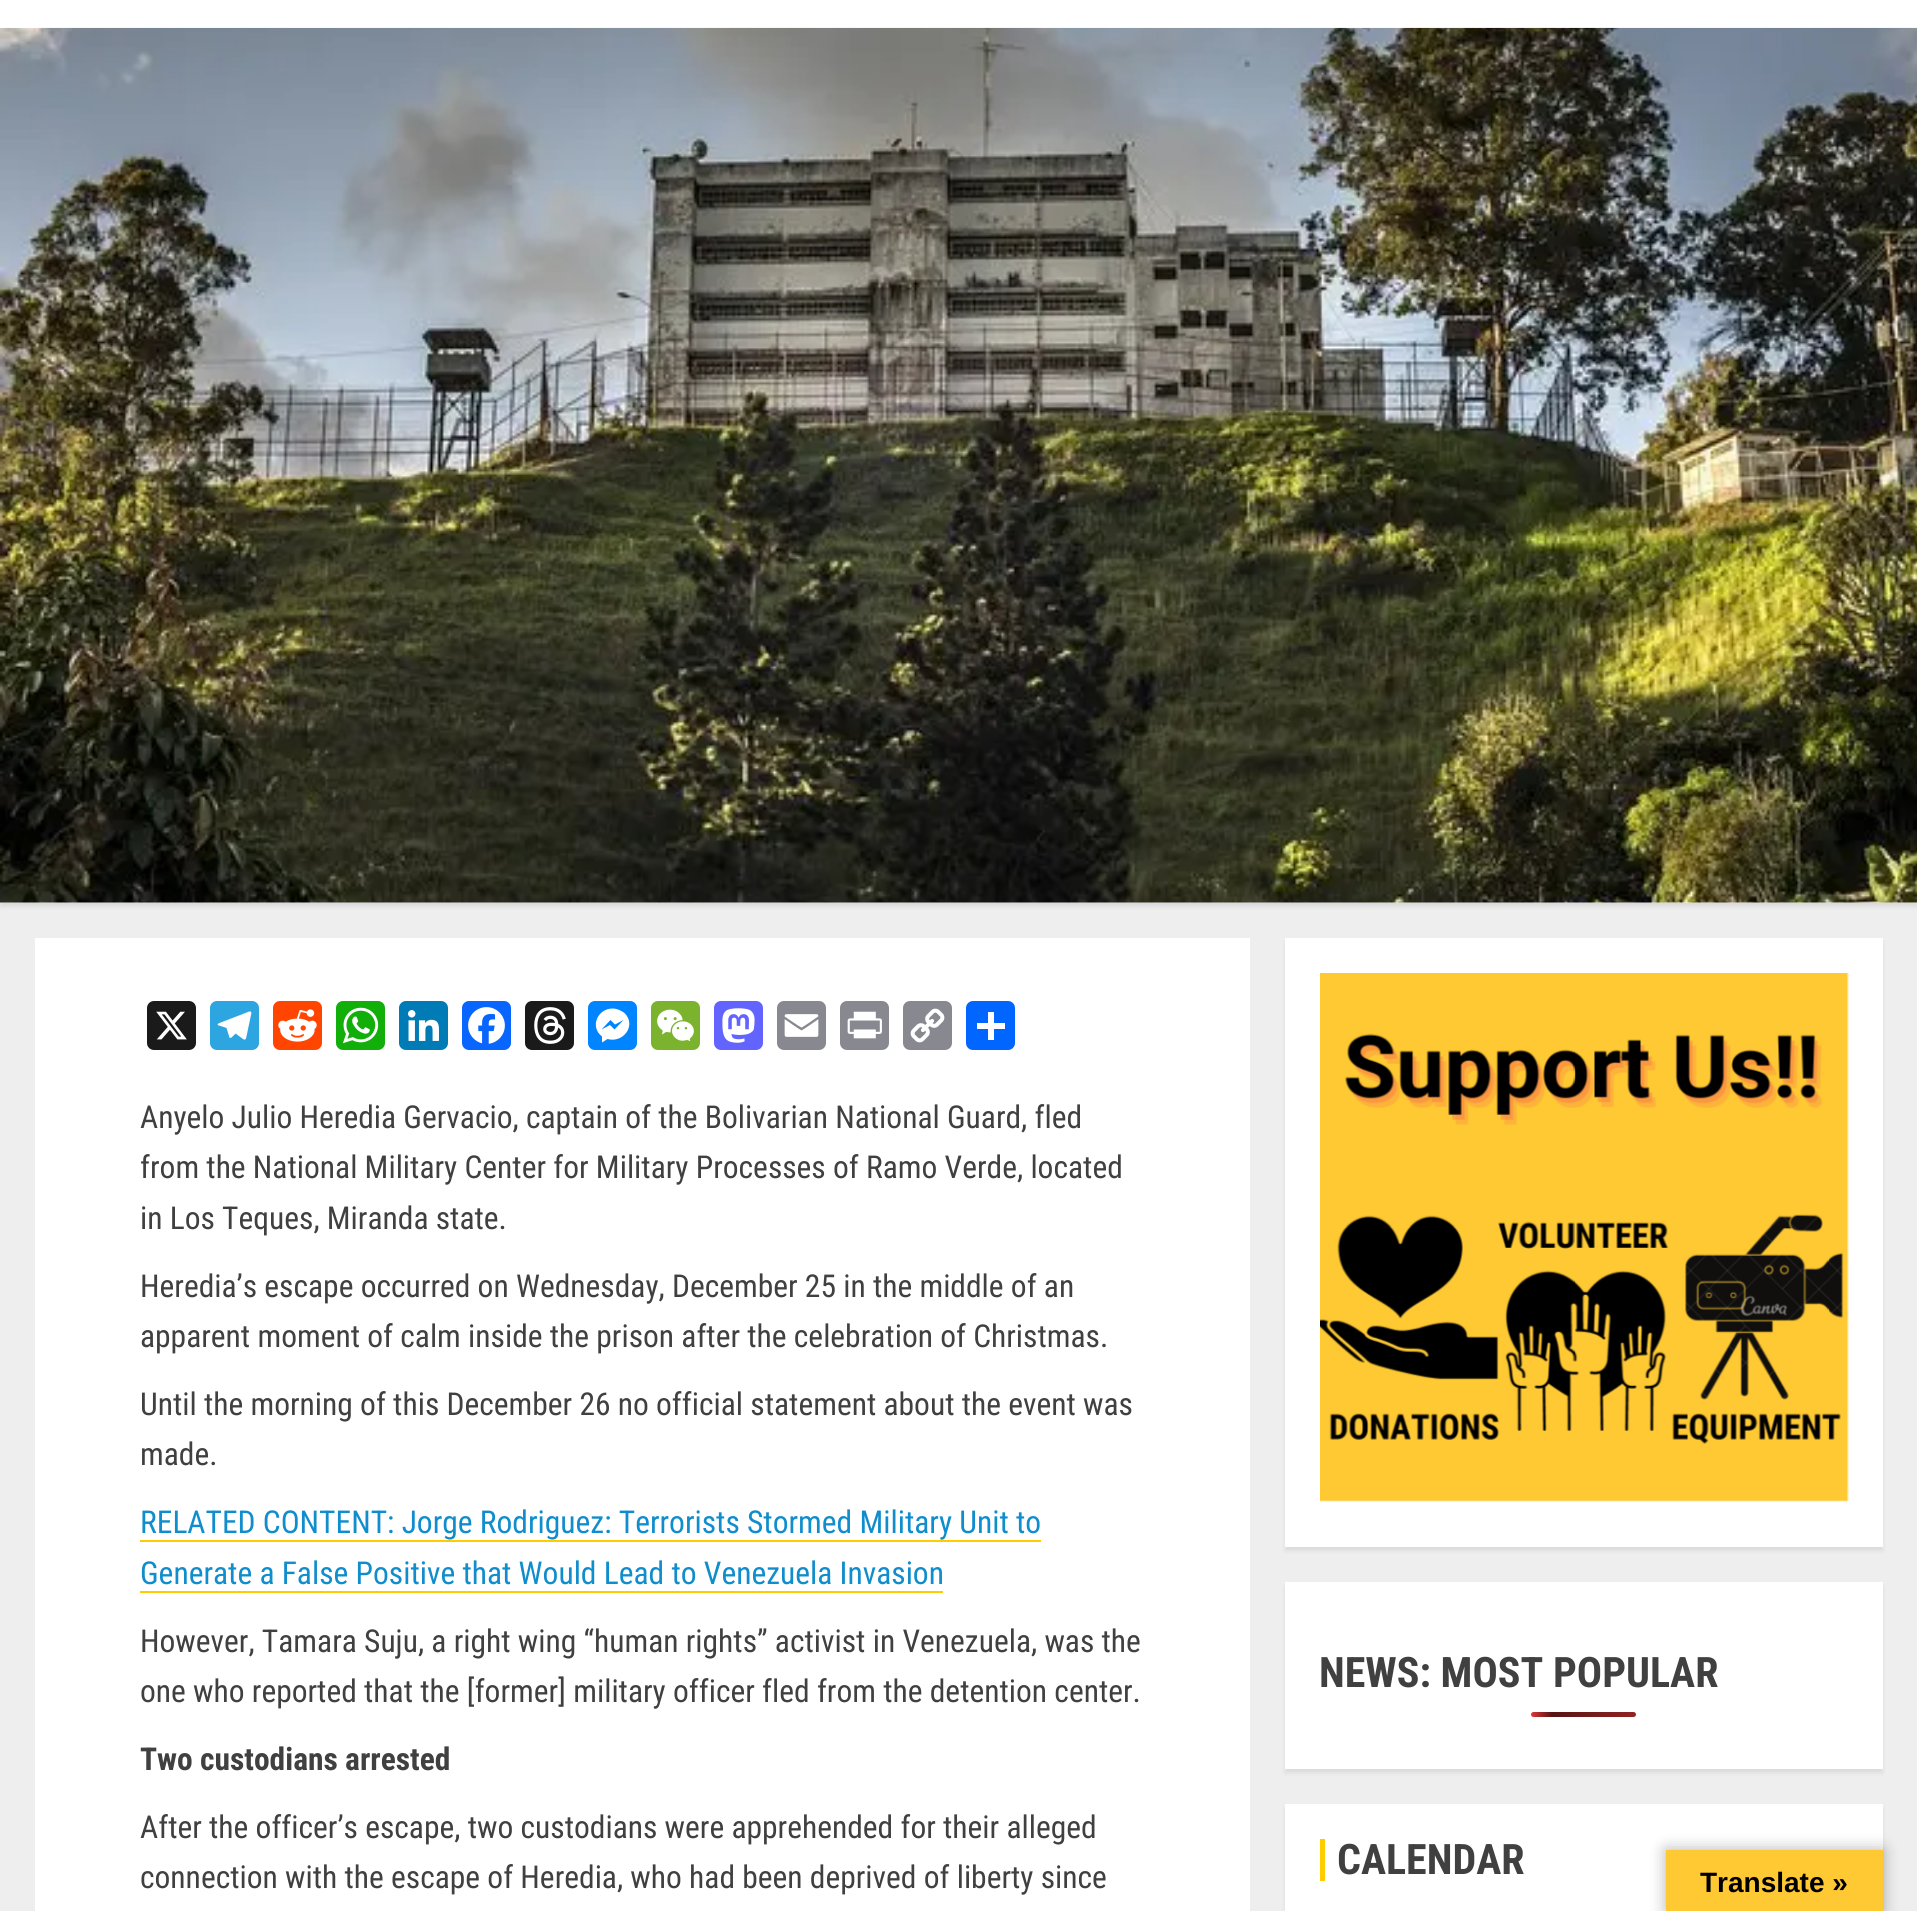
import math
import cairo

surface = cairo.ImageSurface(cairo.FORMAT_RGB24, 1917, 1911)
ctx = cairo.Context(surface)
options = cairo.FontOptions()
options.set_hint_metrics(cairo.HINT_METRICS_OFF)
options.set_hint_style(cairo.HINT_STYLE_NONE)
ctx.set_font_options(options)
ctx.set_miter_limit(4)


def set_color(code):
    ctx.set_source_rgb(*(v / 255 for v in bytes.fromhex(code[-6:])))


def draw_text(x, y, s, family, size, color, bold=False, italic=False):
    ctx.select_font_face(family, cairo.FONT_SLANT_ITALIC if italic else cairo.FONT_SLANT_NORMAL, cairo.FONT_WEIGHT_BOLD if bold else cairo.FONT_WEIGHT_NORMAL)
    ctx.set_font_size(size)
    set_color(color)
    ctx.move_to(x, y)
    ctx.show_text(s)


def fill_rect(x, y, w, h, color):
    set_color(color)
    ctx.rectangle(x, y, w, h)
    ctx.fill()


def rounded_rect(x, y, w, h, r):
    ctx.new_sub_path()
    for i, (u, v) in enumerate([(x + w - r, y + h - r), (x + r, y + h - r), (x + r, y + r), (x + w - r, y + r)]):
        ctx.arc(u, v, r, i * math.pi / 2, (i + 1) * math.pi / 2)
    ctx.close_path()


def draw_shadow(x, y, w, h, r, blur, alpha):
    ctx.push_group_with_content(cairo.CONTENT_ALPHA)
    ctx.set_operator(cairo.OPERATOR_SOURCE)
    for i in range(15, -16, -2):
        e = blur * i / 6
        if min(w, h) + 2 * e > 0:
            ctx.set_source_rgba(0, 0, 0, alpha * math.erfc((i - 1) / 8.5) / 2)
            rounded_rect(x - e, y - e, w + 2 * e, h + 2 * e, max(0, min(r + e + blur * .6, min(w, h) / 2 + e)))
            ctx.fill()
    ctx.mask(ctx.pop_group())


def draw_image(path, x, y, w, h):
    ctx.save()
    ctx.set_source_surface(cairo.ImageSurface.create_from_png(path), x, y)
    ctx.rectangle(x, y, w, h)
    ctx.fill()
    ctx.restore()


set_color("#eeeeee")
ctx.paint()
set_color("#000000")
draw_shadow(0, -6, 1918, 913, 0, 2, 0.08)
fill_rect(0, 0, 1917, 903, "#ffffff")
draw_image("assets/img1.png", 0, 27, 1917, 876)
fill_rect(35, 938, 1215, 973, "#ffffff")
set_color("#1a1a1a")
rounded_rect(147, 1001, 49, 49, 7)
ctx.fill()
draw_image("assets/img2.png", 156, 1011, 31, 29)
set_color("#2ca5e0")
rounded_rect(210, 1001, 49, 49, 7)
ctx.fill()
draw_image("assets/img3.png", 217, 1011, 35, 29)
set_color("#ff4500")
rounded_rect(273, 1001, 49, 49, 7)
ctx.fill()
draw_image("assets/img4.png", 278, 1009, 39, 33)
set_color("#12af0a")
rounded_rect(336, 1001, 49, 49, 7)
ctx.fill()
draw_image("assets/img5.png", 343, 1007, 36, 37)
set_color("#007bb5")
rounded_rect(399, 1001, 49, 49, 7)
ctx.fill()
draw_image("assets/img6.png", 408, 1010, 31, 31)
set_color("#0866ff")
rounded_rect(462, 1001, 49, 49, 7)
ctx.fill()
draw_image("assets/img7.png", 468, 1007, 37, 37)
set_color("#1a1a1a")
rounded_rect(525, 1001, 49, 49, 7)
ctx.fill()
draw_image("assets/img8.png", 534, 1007, 32, 37)
set_color("#0084ff")
rounded_rect(588, 1001, 49, 49, 7)
ctx.fill()
set_color("#ffffff")
ctx.new_path()
ctx.move_to(612.5, 1008.5)
ctx.curve_to(597.5, 1008.5, 589.5, 1027, 602, 1036.5)
ctx.line_to(602, 1042.5)
ctx.line_to(607.5, 1039)
ctx.curve_to(623, 1043.5, 637, 1025.5, 624.5, 1013)
ctx.curve_to(621, 1010.5, 617, 1008.5, 612.5, 1008.5)
ctx.move_to(614.5, 1029.5)
ctx.line_to(610, 1025)
ctx.line_to(601.5, 1029.5)
ctx.line_to(610.5, 1020)
ctx.line_to(615, 1024.5)
ctx.line_to(623.5, 1020)
ctx.close_path()
ctx.fill()
set_color("#7bb32e")
rounded_rect(651, 1001, 49, 49, 7)
ctx.fill()
draw_image("assets/img9.png", 657, 1009, 37, 33)
set_color("#6364ff")
rounded_rect(714, 1001, 49, 49, 7)
ctx.fill()
draw_image("assets/img10.png", 722, 1008, 33, 35)
set_color("#888990")
rounded_rect(777, 1001, 49, 49, 7)
ctx.fill()
draw_image("assets/img11.png", 784, 1014, 35, 23)
rounded_rect(840, 1001, 49, 49, 7)
ctx.fill()
draw_image("assets/img12.png", 847, 1011, 35, 28)
rounded_rect(903, 1001, 49, 49, 7)
ctx.fill()
draw_image("assets/img13.png", 910, 1008, 35, 35)
set_color("#0166ff")
rounded_rect(966, 1001, 49, 49, 7)
ctx.fill()
fill_rect(988, 1012, 6, 28, "#ffffff")
fill_rect(977, 1023, 28, 6, "#ffffff")
draw_text(140, 1128, "Anyelo Julio Heredia Gervacio, captain of the Bolivarian National Guard, fled", "Roboto Condensed", 31.5, "#404040")
draw_text(140, 1178, "from the National Military Center for Military Processes of Ramo Verde, located", "Roboto Condensed", 31.5, "#404040")
draw_text(140, 1229, "in Los Teques, Miranda state.", "Roboto Condensed", 31.5, "#404040")
draw_text(140, 1297, "Heredia’s escape occurred on Wednesday, December 25 in the middle of an", "Roboto Condensed", 31.5, "#404040")
draw_text(140, 1347, "apparent moment of calm inside the prison after the celebration of Christmas.", "Roboto Condensed", 31.5, "#404040")
draw_text(140, 1415, "Until the morning of this December 26 no official statement about the event was", "Roboto Condensed", 31.5, "#404040")
draw_text(140, 1465, "made.", "Roboto Condensed", 31.5, "#404040")
draw_text(140, 1533, "RELATED CONTENT: Jorge Rodriguez: Terrorists Stormed Military Unit to", "Roboto Condensed", 31.5, "#108dcc")
fill_rect(140, 1540, 901, 2, "#ffcc00")
draw_text(140, 1584, "Generate a False Positive that Would Lead to Venezuela Invasion", "Roboto Condensed", 31.5, "#108dcc")
fill_rect(140, 1591, 803, 2, "#ffcc00")
draw_text(140, 1652, "However, Tamara Suju, a right wing “human rights” activist in Venezuela, was the", "Roboto Condensed", 31.5, "#404040")
draw_text(140, 1702, "one who reported that the [former] military officer fled from the detention center.", "Roboto Condensed", 31.5, "#404040")
draw_text(140, 1770, "Two custodians arrested", "Roboto Condensed", 31.5, "#404040", bold=True)
draw_text(140, 1838, "After the officer’s escape, two custodians were apprehended for their alleged", "Roboto Condensed", 31.5, "#404040")
draw_text(140, 1888, "connection with the escape of Heredia, who had been deprived of liberty since", "Roboto Condensed", 31.5, "#404040")
set_color("#000000")
draw_shadow(1285, 942, 598, 609, 0, 2, 0.08)
fill_rect(1285, 938, 598, 609, "#ffffff")
draw_image("assets/img14.png", 1320, 973, 529, 529)
set_color("#000000")
draw_shadow(1285, 1586, 598, 187, 0, 2, 0.08)
fill_rect(1285, 1582, 598, 187, "#ffffff")
draw_text(1319, 1687, "NEWS: MOST POPULAR", "Roboto Condensed", 42, "#404040", bold=True)
gradient = cairo.LinearGradient(1531, 1714, 1741, 1714)
gradient.add_color_stop_rgba(0, 0.867, 0.216, 0.216, 1)
gradient.add_color_stop_rgba(0.1, 0.341, 0.075, 0.075, 1)
gradient.add_color_stop_rgba(1, 0.867, 0.216, 0.216, 1)
ctx.set_source(gradient)
rounded_rect(1531, 1712, 105, 5, 2.5)
ctx.fill()
set_color("#000000")
draw_shadow(1285, 1808, 598, 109, 0, 2, 0.08)
fill_rect(1285, 1804, 598, 107, "#ffffff")
fill_rect(1320, 1839, 5, 42, "#ffcc00")
draw_text(1337, 1874, "CALENDAR", "Roboto Condensed", 42, "#404040", bold=True)
set_color("#000000")
draw_shadow(1666, 1850, 217, 61, 0, 8, 0.3)
fill_rect(1666, 1850, 217, 61, "#ffc934")
draw_text(1700, 1892, "Translate »", "Liberation Sans", 28, "#000000", bold=True)
surface.write_to_png("output.png")
